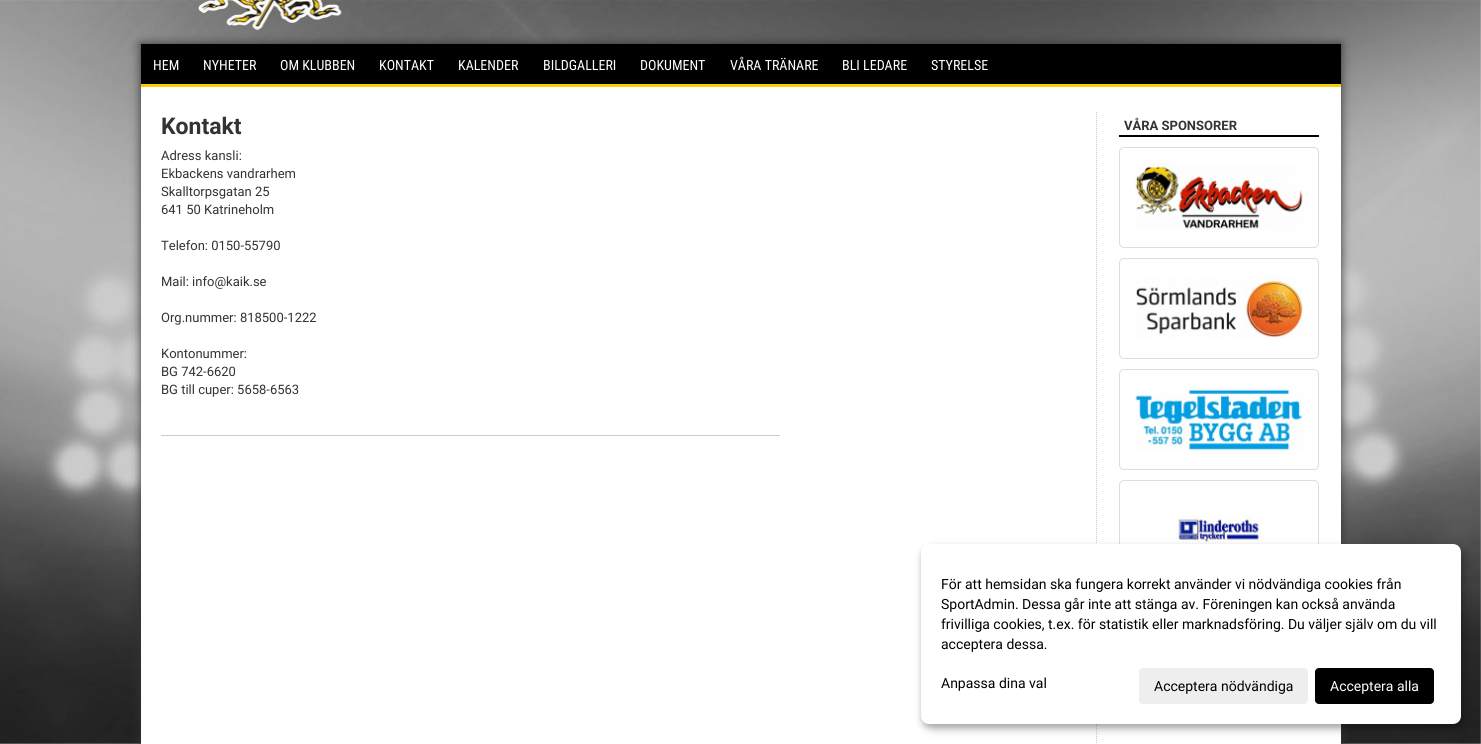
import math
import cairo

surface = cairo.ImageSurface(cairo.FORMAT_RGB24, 1481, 744)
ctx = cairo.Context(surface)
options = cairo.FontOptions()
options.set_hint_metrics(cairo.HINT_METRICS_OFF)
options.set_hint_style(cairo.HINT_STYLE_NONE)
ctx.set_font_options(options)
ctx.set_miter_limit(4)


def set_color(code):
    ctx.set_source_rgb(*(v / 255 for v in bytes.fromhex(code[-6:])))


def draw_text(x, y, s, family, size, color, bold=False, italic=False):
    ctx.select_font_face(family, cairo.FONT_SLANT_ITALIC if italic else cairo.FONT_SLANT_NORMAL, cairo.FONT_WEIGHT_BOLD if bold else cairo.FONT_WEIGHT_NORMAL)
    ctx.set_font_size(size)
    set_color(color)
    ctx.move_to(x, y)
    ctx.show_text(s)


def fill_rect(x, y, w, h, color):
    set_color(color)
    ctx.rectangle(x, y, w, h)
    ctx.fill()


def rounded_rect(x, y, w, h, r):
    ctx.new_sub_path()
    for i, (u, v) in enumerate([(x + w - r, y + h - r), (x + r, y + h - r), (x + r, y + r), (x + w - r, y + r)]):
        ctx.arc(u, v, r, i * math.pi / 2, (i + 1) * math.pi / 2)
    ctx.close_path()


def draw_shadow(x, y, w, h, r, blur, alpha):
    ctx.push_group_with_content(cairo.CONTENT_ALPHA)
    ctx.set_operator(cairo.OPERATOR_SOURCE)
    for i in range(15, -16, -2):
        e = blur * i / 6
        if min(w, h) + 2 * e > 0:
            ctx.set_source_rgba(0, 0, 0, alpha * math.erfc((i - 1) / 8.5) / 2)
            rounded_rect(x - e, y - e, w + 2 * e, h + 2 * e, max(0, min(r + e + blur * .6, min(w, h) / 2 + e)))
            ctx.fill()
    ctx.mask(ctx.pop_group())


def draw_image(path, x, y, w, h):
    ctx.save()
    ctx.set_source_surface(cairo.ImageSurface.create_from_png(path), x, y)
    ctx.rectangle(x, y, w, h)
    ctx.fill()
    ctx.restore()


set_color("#ffffff")
ctx.paint()
draw_image("assets/img1.png", 0, 0, 1481, 744)
set_color("#333333")
draw_shadow(141, 44, 1200, 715, 0, 5, 1)
draw_image("assets/img2.png", 198, 0, 144, 30)
fill_rect(141, 87, 1200, 657, "#ffffff")
fill_rect(141, 44, 1200, 40, "#000000")
draw_text(153, 70, "HEM", "Roboto Condensed", 14, "#ffffff")
draw_text(203, 70, "NYHETER", "Roboto Condensed", 14, "#ffffff")
draw_text(280, 70, "OM KLUBBEN", "Roboto Condensed", 14, "#ffffff")
draw_text(379, 70, "KONTAKT", "Roboto Condensed", 14, "#ffffff")
draw_text(458, 70, "KALENDER", "Roboto Condensed", 14, "#ffffff")
draw_text(543, 70, "BILDGALLERI", "Roboto Condensed", 14, "#ffffff")
draw_text(640, 70, "DOKUMENT", "Roboto Condensed", 14, "#ffffff")
draw_text(730, 70, "VÅRA TRÄNARE", "Roboto Condensed", 14, "#ffffff")
draw_text(842, 70, "BLI LEDARE", "Roboto Condensed", 14, "#ffffff")
draw_text(931, 70, "STYRELSE", "Roboto Condensed", 14, "#ffffff")
fill_rect(141, 84, 1200, 3, "#fbcd06")
draw_text(161, 134, "Kontakt", "Roboto", 23, "#333333", bold=True)
draw_text(161, 160, "Adress kansli:", "Roboto", 13, "#333333")
draw_text(161, 178, "Ekbackens vandrarhem", "Roboto", 13, "#333333")
draw_text(161, 196, "Skalltorpsgatan 25", "Roboto", 13, "#333333")
draw_text(161, 214, "641 50 Katrineholm", "Roboto", 13, "#333333")
draw_text(161, 250, "Telefon: 0150-55790", "Roboto", 13, "#333333")
draw_text(161, 286, "Mail: info@kaik.se", "Roboto", 13, "#333333")
draw_text(161, 322, "Org.nummer: 818500-1222", "Roboto", 13, "#333333")
draw_text(161, 358, "Kontonummer:", "Roboto", 13, "#333333")
draw_text(161, 376, "BG 742-6620", "Roboto", 13, "#333333")
draw_text(161, 394, "BG till cuper: 5658-6563", "Roboto", 13, "#333333")
fill_rect(161, 435, 619, 1, "#cccccc")
ctx.new_path()
ctx.move_to(1096.5, 112)
ctx.line_to(1096.5, 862)
ctx.set_line_width(1)
ctx.set_dash([1, 1])
ctx.stroke()
fill_rect(1119, 135, 200, 2, "#000000")
draw_text(1124, 130, "VÅRA SPONSORER", "Roboto", 13, "#333333", bold=True)
rounded_rect(1119.5, 147.5, 199, 100, 4.5)
set_color("#dddddd")
ctx.set_dash([])
ctx.stroke()
draw_image("assets/img3.png", 1135, 163, 168, 67)
rounded_rect(1119.5, 258.5, 199, 100, 4.5)
ctx.stroke()
draw_image("assets/img4.png", 1136, 275, 167, 64)
rounded_rect(1119.5, 369.5, 199, 100, 4.5)
ctx.stroke()
draw_image("assets/img5.png", 1135, 386, 168, 65)
rounded_rect(1119.5, 480.5, 199, 100, 4.5)
ctx.stroke()
draw_image("assets/img6.png", 1175, 516, 88, 28)
set_color("#000000")
draw_shadow(926, 549, 540, 180, 8, 5, 0.19)
draw_shadow(921, 548, 540, 180, 8, 3, 0.2)
set_color("#ffffff")
rounded_rect(921, 544, 540, 180, 8)
ctx.fill()
draw_text(941, 589, "För att hemsidan ska fungera korrekt använder vi nödvändiga cookies från", "Roboto", 14, "#000000")
draw_text(941, 609, "SportAdmin. Dessa går inte att stänga av. Föreningen kan också använda", "Roboto", 14, "#000000")
draw_text(941, 629, "frivilliga cookies, t.ex. för statistik eller marknadsföring. Du väljer själv om du vill", "Roboto", 14, "#000000")
draw_text(941, 649, "acceptera dessa.", "Roboto", 14, "#000000")
draw_text(941, 688, "Anpassa dina val", "Roboto", 14, "#000000")
set_color("#eeeeee")
rounded_rect(1139, 668, 169, 36, 4)
ctx.fill()
draw_text(1154, 691, "Acceptera nödvändiga", "Roboto", 14, "#000000")
rounded_rect(1315, 668, 119, 36, 4)
ctx.fill()
draw_text(1330, 691, "Acceptera alla", "Roboto", 14, "#ffffff")
surface.write_to_png("output.png")
